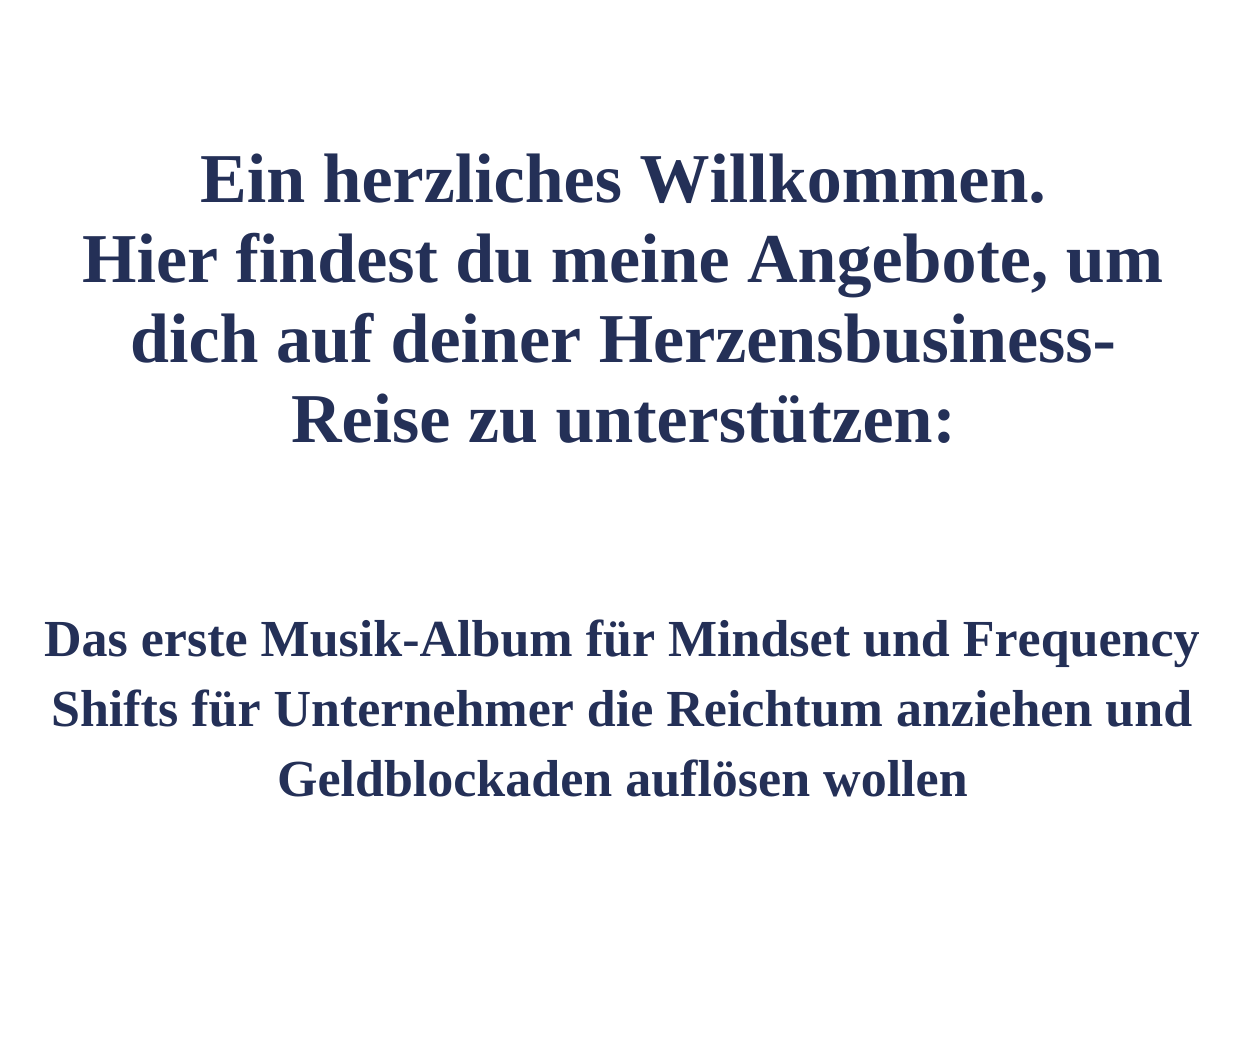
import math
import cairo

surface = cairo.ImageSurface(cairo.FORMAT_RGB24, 1246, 1054)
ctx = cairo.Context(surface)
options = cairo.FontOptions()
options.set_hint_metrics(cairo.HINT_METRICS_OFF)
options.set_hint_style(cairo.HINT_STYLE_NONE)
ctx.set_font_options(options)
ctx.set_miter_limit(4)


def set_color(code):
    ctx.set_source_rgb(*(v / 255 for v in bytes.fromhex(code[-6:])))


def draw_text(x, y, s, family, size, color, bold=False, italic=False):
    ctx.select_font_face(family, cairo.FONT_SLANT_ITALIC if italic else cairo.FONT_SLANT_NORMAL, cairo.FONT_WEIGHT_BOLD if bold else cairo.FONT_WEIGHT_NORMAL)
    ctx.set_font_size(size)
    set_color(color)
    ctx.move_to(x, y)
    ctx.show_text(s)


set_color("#ffffff")
ctx.paint()
draw_text(200, 202, "Ein herzliches Willkommen.", "Liberation Serif", 70, "#243057", bold=True)
draw_text(82, 282, "Hier findest du meine Angebote, um", "Liberation Serif", 70, "#243057", bold=True)
draw_text(130, 362, "dich auf deiner Herzensbusiness-", "Liberation Serif", 70, "#243057", bold=True)
draw_text(291, 442, "Reise zu unterstützen:", "Liberation Serif", 70, "#243057", bold=True)
draw_text(44, 656, "Das erste Musik-Album für Mindset und Frequency", "Liberation Serif", 52, "#243057", bold=True)
draw_text(51, 726, "Shifts für Unternehmer die Reichtum anziehen und", "Liberation Serif", 52, "#243057", bold=True)
draw_text(277, 796, "Geldblockaden auflösen wollen", "Liberation Serif", 52, "#243057", bold=True)
surface.write_to_png("output.png")
